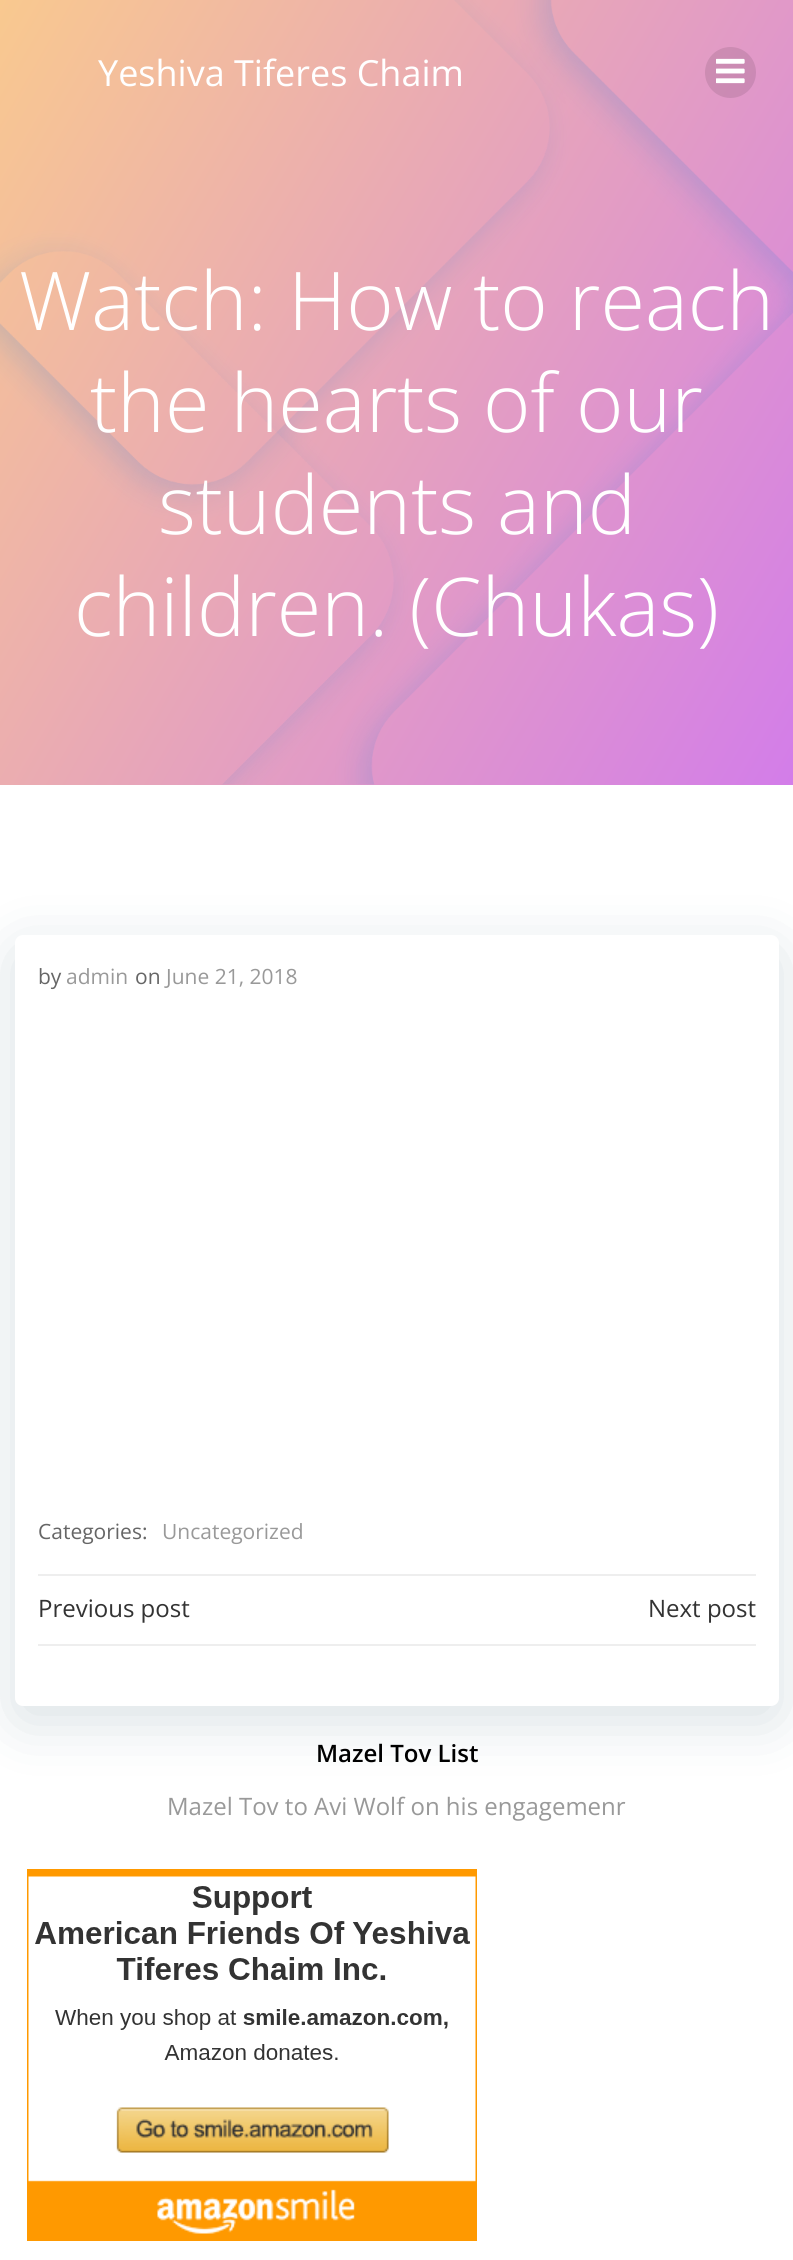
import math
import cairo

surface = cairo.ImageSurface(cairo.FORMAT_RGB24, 793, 2260)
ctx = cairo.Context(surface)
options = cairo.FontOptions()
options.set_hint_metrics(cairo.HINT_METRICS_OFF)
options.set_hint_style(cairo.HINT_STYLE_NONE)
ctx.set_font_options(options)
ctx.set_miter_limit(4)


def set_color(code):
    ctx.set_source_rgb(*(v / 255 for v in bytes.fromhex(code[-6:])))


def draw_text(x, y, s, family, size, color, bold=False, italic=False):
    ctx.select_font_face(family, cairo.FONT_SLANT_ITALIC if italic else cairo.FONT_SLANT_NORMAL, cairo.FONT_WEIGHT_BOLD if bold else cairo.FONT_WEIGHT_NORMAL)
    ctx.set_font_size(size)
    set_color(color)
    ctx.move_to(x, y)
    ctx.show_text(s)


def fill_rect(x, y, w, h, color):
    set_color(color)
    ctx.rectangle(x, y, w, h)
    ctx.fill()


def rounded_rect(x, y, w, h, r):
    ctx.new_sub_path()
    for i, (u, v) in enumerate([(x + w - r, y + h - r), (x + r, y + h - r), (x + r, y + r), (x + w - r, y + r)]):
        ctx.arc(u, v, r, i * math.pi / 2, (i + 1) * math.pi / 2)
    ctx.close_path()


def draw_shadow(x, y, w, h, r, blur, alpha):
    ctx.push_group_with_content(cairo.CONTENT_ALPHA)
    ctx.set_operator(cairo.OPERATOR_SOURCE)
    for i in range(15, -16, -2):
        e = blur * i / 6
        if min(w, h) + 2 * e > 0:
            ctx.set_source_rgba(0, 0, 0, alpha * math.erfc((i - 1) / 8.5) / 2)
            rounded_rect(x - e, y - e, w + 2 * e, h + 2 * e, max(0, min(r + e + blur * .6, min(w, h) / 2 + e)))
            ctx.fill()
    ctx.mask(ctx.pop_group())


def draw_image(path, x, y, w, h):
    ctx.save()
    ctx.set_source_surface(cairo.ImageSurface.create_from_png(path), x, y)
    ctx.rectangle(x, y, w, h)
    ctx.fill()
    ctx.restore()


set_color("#ffffff")
ctx.paint()
gradient = cairo.LinearGradient(-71, 122, 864, 662)
gradient.add_color_stop_rgba(0, 0.976, 0.788, 0.561, 1)
gradient.add_color_stop_rgba(1, 0.827, 0.49, 0.914, 1)
ctx.set_source(gradient)
ctx.rectangle(0, 0, 793, 785)
ctx.fill()
draw_image("assets/img2.png", 0, 0, 793, 785)
draw_text(98, 86, "Yeshiva Tiferes Chaim", "Open Sans", 36, "#ffffff")
ctx.set_source_rgba(0, 0, 0, 0.1)
ctx.new_path()
ctx.arc(730.5, 72.5, 25.5, 0, 2 * math.pi)
ctx.fill()
draw_image("assets/img1.png", 716, 58, 29, 26)
draw_text(19, 330, "Watch: How to reach", "Open Sans Light", 81, "#ffffff")
draw_text(90, 432, "the hearts of our", "Open Sans Light", 81, "#ffffff")
draw_text(158, 534, "students and", "Open Sans Light", 81, "#ffffff")
draw_text(74, 636, "children. (Chukas)", "Open Sans Light", 81, "#ffffff")
set_color("#01334a")
draw_shadow(15, 950, 764, 771, 8, 30, 0.15)
set_color("#ffffff")
rounded_rect(15, 935, 764, 771, 8)
ctx.fill()
draw_text(38, 984, "by", "Open Sans", 21, "#666666")
draw_text(66, 984, "admin", "Open Sans", 21, "#999999")
draw_text(135, 984, "on", "Open Sans", 21, "#666666")
draw_text(166, 984, "June 21, 2018", "Open Sans", 21, "#999999")
draw_text(38, 1539, "Categories:", "Open Sans", 21, "#666666")
draw_text(162, 1539, "Uncategorized", "Open Sans", 21, "#999999")
fill_rect(38, 1574, 718, 2, "#eeeeee")
draw_text(38, 1617, "Previous post", "Open Sans", 24, "#333333")
draw_text(648, 1617, "Next post", "Open Sans", 24, "#333333")
fill_rect(38, 1644, 718, 2, "#eeeeee")
draw_text(316, 1762, "Mazel Tov List", "Open Sans SemiBold", 24, "#000000")
draw_text(167, 1815, "Mazel Tov to Avi Wolf on his engagemenr", "Open Sans", 24, "#999999")
draw_image("assets/img3.png", 27, 1869, 450, 372)
surface.write_to_png("output.png")
